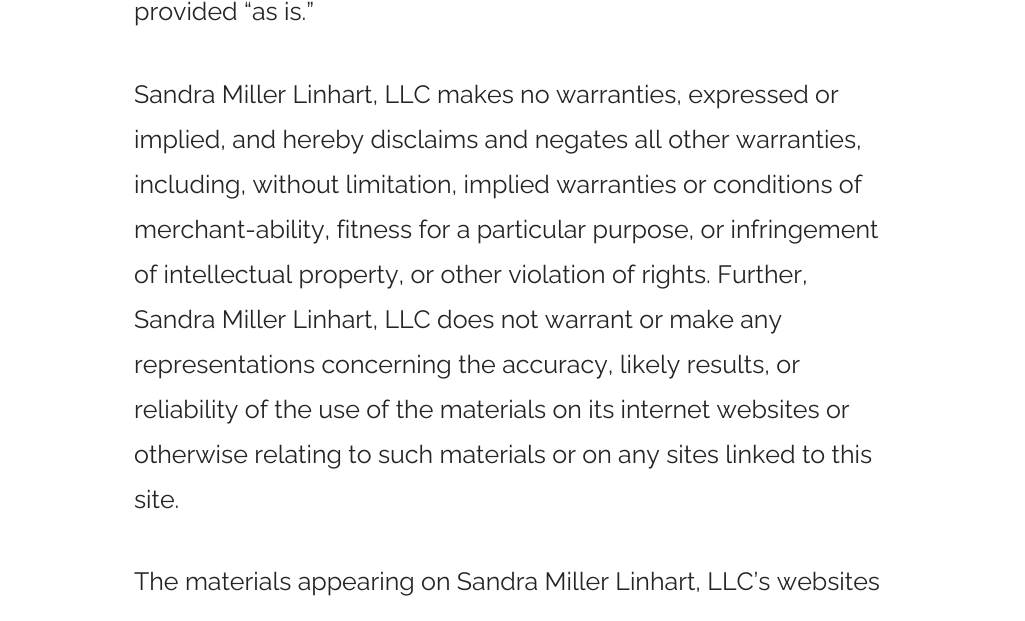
import math
import cairo

surface = cairo.ImageSurface(cairo.FORMAT_RGB24, 1025, 621)
ctx = cairo.Context(surface)
options = cairo.FontOptions()
options.set_hint_metrics(cairo.HINT_METRICS_OFF)
options.set_hint_style(cairo.HINT_STYLE_NONE)
ctx.set_font_options(options)
ctx.set_miter_limit(4)


def set_color(code):
    ctx.set_source_rgb(*(v / 255 for v in bytes.fromhex(code[-6:])))


def draw_text(x, y, s, family, size, color, bold=False, italic=False):
    ctx.select_font_face(family, cairo.FONT_SLANT_ITALIC if italic else cairo.FONT_SLANT_NORMAL, cairo.FONT_WEIGHT_BOLD if bold else cairo.FONT_WEIGHT_NORMAL)
    ctx.set_font_size(size)
    set_color(color)
    ctx.move_to(x, y)
    ctx.show_text(s)


set_color("#ffffff")
ctx.paint()
draw_text(134, 20, "provided “as is.”", "Raleway", 25, "#252525")
draw_text(134, 103, "Sandra Miller Linhart, LLC makes no warranties, expressed or", "Raleway", 25, "#252525")
draw_text(134, 148, "implied, and hereby disclaims and negates all other warranties,", "Raleway", 25, "#252525")
draw_text(134, 193, "including, without limitation, implied warranties or conditions of", "Raleway", 25, "#252525")
draw_text(134, 238, "merchant-ability, fitness for a particular purpose, or infringement", "Raleway", 25, "#252525")
draw_text(134, 283, "of intellectual property, or other violation of rights. Further,", "Raleway", 25, "#252525")
draw_text(134, 328, "Sandra Miller Linhart, LLC does not warrant or make any", "Raleway", 25, "#252525")
draw_text(134, 373, "representations concerning the accuracy, likely results, or", "Raleway", 25, "#252525")
draw_text(134, 418, "reliability of the use of the materials on its internet websites or", "Raleway", 25, "#252525")
draw_text(134, 463, "otherwise relating to such materials or on any sites linked to this", "Raleway", 25, "#252525")
draw_text(134, 508, "site.", "Raleway", 25, "#252525")
draw_text(134, 590, "The materials appearing on Sandra Miller Linhart, LLC’s websites", "Raleway", 25, "#252525")
surface.write_to_png("output.png")
